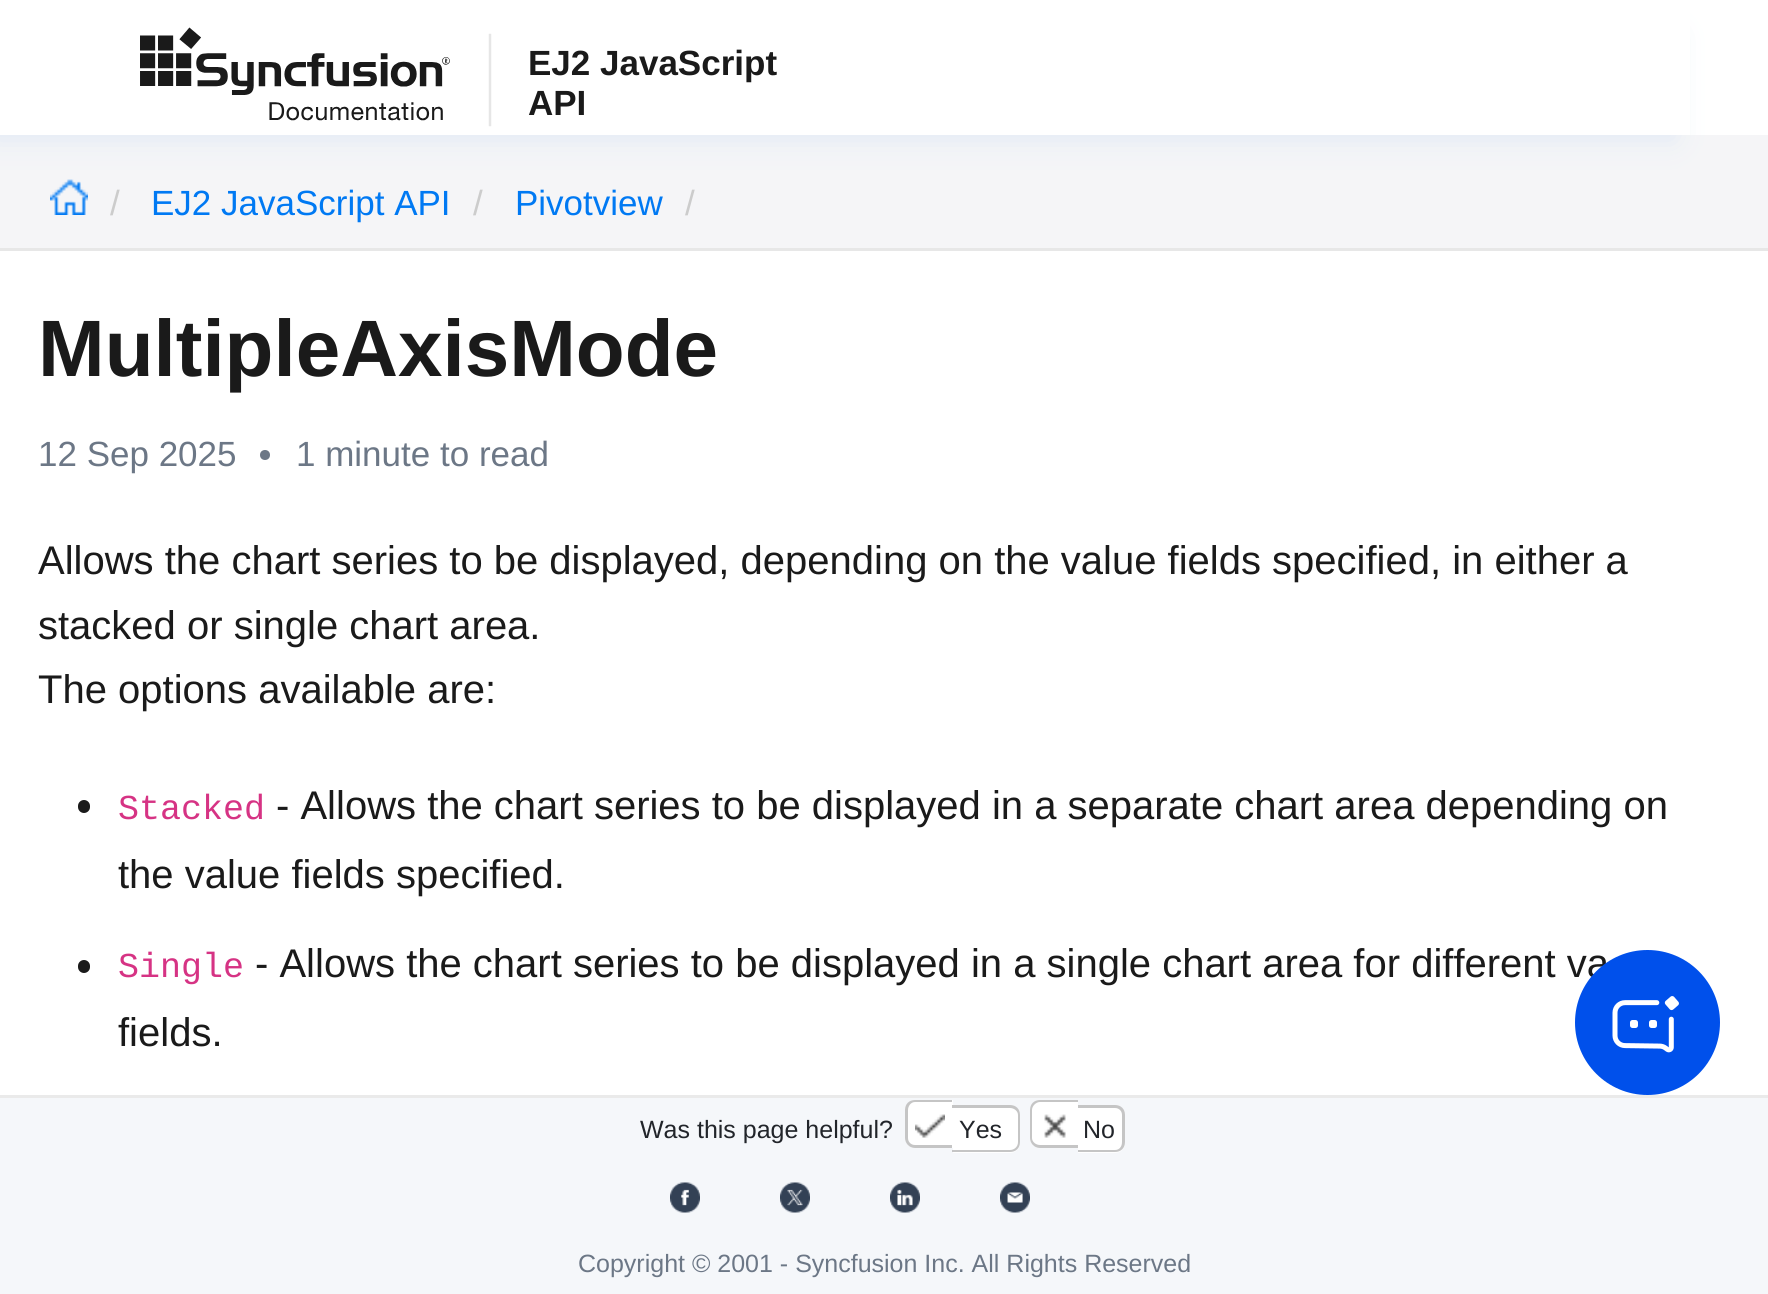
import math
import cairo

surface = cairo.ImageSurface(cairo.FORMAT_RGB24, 1768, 1294)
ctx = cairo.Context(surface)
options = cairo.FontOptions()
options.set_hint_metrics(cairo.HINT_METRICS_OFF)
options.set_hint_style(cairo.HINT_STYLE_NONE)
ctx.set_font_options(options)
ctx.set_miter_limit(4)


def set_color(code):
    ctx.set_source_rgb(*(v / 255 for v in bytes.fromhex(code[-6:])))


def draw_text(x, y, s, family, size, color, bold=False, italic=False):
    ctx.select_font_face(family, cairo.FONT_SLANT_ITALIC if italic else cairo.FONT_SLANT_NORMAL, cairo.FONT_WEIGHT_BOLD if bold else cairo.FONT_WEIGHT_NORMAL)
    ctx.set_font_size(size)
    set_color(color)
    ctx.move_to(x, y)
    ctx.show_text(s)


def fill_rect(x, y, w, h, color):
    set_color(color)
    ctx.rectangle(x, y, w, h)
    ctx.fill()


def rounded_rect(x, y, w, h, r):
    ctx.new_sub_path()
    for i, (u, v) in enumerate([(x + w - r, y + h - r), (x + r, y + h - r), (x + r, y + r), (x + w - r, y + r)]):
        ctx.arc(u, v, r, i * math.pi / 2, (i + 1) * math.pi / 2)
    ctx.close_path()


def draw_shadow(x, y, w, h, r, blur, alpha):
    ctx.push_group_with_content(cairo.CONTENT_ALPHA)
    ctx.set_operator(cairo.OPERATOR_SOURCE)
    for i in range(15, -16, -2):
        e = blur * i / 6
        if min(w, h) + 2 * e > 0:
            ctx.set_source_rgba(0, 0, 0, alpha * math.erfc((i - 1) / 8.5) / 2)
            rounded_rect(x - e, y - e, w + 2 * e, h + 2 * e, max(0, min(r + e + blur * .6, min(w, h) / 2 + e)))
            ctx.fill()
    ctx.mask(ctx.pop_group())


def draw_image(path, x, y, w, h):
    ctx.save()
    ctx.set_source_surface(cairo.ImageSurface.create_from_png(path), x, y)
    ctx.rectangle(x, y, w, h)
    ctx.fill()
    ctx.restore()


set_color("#ffffff")
ctx.paint()
fill_rect(0, 135, 1768, 113, "#f5f5f7")
draw_image("assets/img2.png", 50, 179, 38, 36)
ctx.save()
ctx.set_fill_rule(cairo.FILL_RULE_EVEN_ODD)
ctx.new_path()
ctx.move_to(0, 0)
ctx.line_to(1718, 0)
ctx.line_to(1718, 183)
ctx.line_to(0, 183)
ctx.close_path()
ctx.move_to(-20, 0)
ctx.line_to(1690, 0)
ctx.line_to(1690, 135)
ctx.line_to(-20, 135)
ctx.close_path()
ctx.clip()
set_color("#e2eaf5")
draw_shadow(-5, 35, 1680, 105, 0, 14, 1)
ctx.restore()
draw_image("assets/img1.png", 140, 27, 352, 100)
draw_text(528, 75, "EJ2 JavaScript", "Liberation Sans", 35, "#1a1a1a", bold=True)
draw_text(528, 115, "API", "Liberation Sans", 35, "#1a1a1a", bold=True)
fill_rect(0, 248, 1768, 3, "#e7e7e7")
draw_text(110, 215, "/", "Liberation Sans", 35, "#cccccc")
draw_text(151, 215, "EJ2 JavaScript API", "Liberation Sans", 35, "#0079f3")
draw_text(473, 215, "/", "Liberation Sans", 35, "#cccccc")
draw_text(515, 215, "Pivotview", "Liberation Sans", 35, "#0079f3")
draw_text(685, 215, "/", "Liberation Sans", 35, "#cccccc")
draw_text(38, 376, "MultipleAxisMode", "Liberation Sans", 80, "#1a1a1a", bold=True)
draw_text(38, 466, "12 Sep 2025", "Liberation Sans", 35, "#6c7786")
ctx.new_path()
ctx.arc(265, 455, 5, 0, 2 * math.pi)
ctx.fill()
draw_text(296, 466, "1 minute to read", "Liberation Sans", 35, "#6c7786")
draw_text(38, 574, "Allows the chart series to be displayed, depending on the value fields specified, in either a", "Liberation Sans", 40, "#1a1a1a")
draw_text(38, 639, "stacked or single chart area.", "Liberation Sans", 40, "#1a1a1a")
draw_text(38, 703, "The options available are:", "Liberation Sans", 40, "#1a1a1a")
rounded_rect(78, 800, 12, 13, 6)
ctx.fill()
draw_text(118, 819, "Stacked", "Liberation Mono", 35, "#d63384")
draw_text(276, 819, "- Allows the chart series to be displayed in a separate chart area depending on", "Liberation Sans", 40, "#1a1a1a")
draw_text(118, 888, "the value fields specified.", "Liberation Sans", 40, "#1a1a1a")
rounded_rect(78, 960, 12, 13, 6)
ctx.fill()
draw_text(118, 977, "Single", "Liberation Mono", 35, "#d63384")
draw_text(255, 977, "- Allows the chart series to be displayed in a single chart area for different va", "Liberation Sans", 40, "#1a1a1a")
draw_text(118, 1046, "fields.", "Liberation Sans", 40, "#1a1a1a")
set_color("#0050eb")
ctx.new_path()
ctx.arc(1647.5, 1022.5, 72.5, 0, 2 * math.pi)
ctx.fill()
draw_image("assets/img3.png", 1612, 996, 67, 57)
fill_rect(0, 1098, 1768, 196, "#f5f7fa")
fill_rect(0, 1095, 1768, 3, "#eaeaea")
draw_text(640, 1138, "Was this page helpful?", "Liberation Sans", 25, "#22252a")
set_color("#ffffff")
ctx.new_path()
ctx.move_to(915, 1100)
ctx.line_to(953, 1100)
ctx.line_to(953, 1148)
ctx.line_to(915, 1148)
ctx.curve_to(909.5, 1148, 905, 1143.5, 905, 1138)
ctx.line_to(905, 1110)
ctx.curve_to(905, 1104.5, 909.5, 1100, 915, 1100)
ctx.close_path()
ctx.fill()
set_color("#c5c5c5")
ctx.set_fill_rule(cairo.FILL_RULE_EVEN_ODD)
ctx.new_path()
ctx.move_to(915, 1100)
ctx.line_to(952, 1100)
ctx.line_to(952, 1148)
ctx.line_to(915, 1148)
ctx.curve_to(909, 1148, 905, 1143, 905, 1138)
ctx.line_to(905, 1110)
ctx.curve_to(905, 1104, 909, 1100, 915, 1100)
ctx.close_path()
ctx.move_to(915, 1102)
ctx.line_to(952, 1102)
ctx.line_to(952, 1145)
ctx.line_to(915, 1145)
ctx.curve_to(911, 1145, 908, 1142, 908, 1138)
ctx.line_to(908, 1110)
ctx.curve_to(908, 1106, 911, 1102, 915, 1102)
ctx.close_path()
ctx.fill()
set_color("#ffffff")
ctx.new_path()
ctx.move_to(953, 1105)
ctx.line_to(1010, 1105)
ctx.curve_to(1015.5, 1105, 1020, 1109.5, 1020, 1115)
ctx.line_to(1020, 1143)
ctx.curve_to(1020, 1148.5, 1015.5, 1153, 1010, 1153)
ctx.line_to(953, 1153)
ctx.close_path()
ctx.fill()
set_color("#c5c5c5")
ctx.new_path()
ctx.move_to(952, 1105)
ctx.line_to(1010, 1105)
ctx.curve_to(1016, 1105, 1020, 1109, 1020, 1115)
ctx.line_to(1020, 1142)
ctx.curve_to(1020, 1148, 1016, 1152, 1010, 1152)
ctx.line_to(952, 1152)
ctx.close_path()
ctx.move_to(952, 1108)
ctx.line_to(1010, 1108)
ctx.curve_to(1014, 1108, 1018, 1111, 1018, 1115)
ctx.line_to(1018, 1142)
ctx.curve_to(1018, 1147, 1014, 1150, 1010, 1150)
ctx.line_to(952, 1150)
ctx.close_path()
ctx.fill()
draw_image("assets/img4.png", 915, 1114, 30, 24)
draw_text(959, 1138, "Yes", "Liberation Sans", 25, "#22252a")
set_color("#ffffff")
ctx.new_path()
ctx.move_to(1040, 1100)
ctx.line_to(1078, 1100)
ctx.line_to(1078, 1148)
ctx.line_to(1040, 1148)
ctx.curve_to(1034.5, 1148, 1030, 1143.5, 1030, 1138)
ctx.line_to(1030, 1110)
ctx.curve_to(1030, 1104.5, 1034.5, 1100, 1040, 1100)
ctx.close_path()
ctx.fill()
set_color("#c5c5c5")
ctx.new_path()
ctx.move_to(1040, 1100)
ctx.line_to(1078, 1100)
ctx.line_to(1078, 1148)
ctx.line_to(1040, 1148)
ctx.curve_to(1034, 1148, 1030, 1143, 1030, 1138)
ctx.line_to(1030, 1110)
ctx.curve_to(1030, 1104, 1034, 1100, 1040, 1100)
ctx.close_path()
ctx.move_to(1040, 1102)
ctx.line_to(1078, 1102)
ctx.line_to(1078, 1145)
ctx.line_to(1040, 1145)
ctx.curve_to(1036, 1145, 1032, 1142, 1032, 1138)
ctx.line_to(1032, 1110)
ctx.curve_to(1032, 1106, 1036, 1102, 1040, 1102)
ctx.close_path()
ctx.fill()
set_color("#ffffff")
ctx.new_path()
ctx.move_to(1078, 1105)
ctx.line_to(1115, 1105)
ctx.curve_to(1120.5, 1105, 1125, 1109.5, 1125, 1115)
ctx.line_to(1125, 1143)
ctx.curve_to(1125, 1148.5, 1120.5, 1153, 1115, 1153)
ctx.line_to(1078, 1153)
ctx.close_path()
ctx.fill()
set_color("#c5c5c5")
ctx.new_path()
ctx.move_to(1078, 1105)
ctx.line_to(1115, 1105)
ctx.curve_to(1121, 1105, 1125, 1109, 1125, 1115)
ctx.line_to(1125, 1142)
ctx.curve_to(1125, 1148, 1121, 1152, 1115, 1152)
ctx.line_to(1078, 1152)
ctx.close_path()
ctx.move_to(1078, 1108)
ctx.line_to(1115, 1108)
ctx.curve_to(1119, 1108, 1122, 1111, 1122, 1115)
ctx.line_to(1122, 1142)
ctx.curve_to(1122, 1147, 1119, 1150, 1115, 1150)
ctx.line_to(1078, 1150)
ctx.close_path()
ctx.fill()
draw_image("assets/img5.png", 1044, 1114, 22, 24)
draw_text(1083, 1138, "No", "Liberation Sans", 25, "#22252a")
draw_image("assets/img6.png", 670, 1182, 30, 31)
draw_image("assets/img7.png", 780, 1182, 30, 31)
draw_image("assets/img8.png", 890, 1182, 30, 31)
draw_image("assets/img9.png", 1000, 1182, 30, 31)
draw_text(578, 1272, "Copyright © 2001 - Syncfusion Inc. All Rights Reserved", "Liberation Sans", 25, "#6c7786")
surface.write_to_png("output.png")
